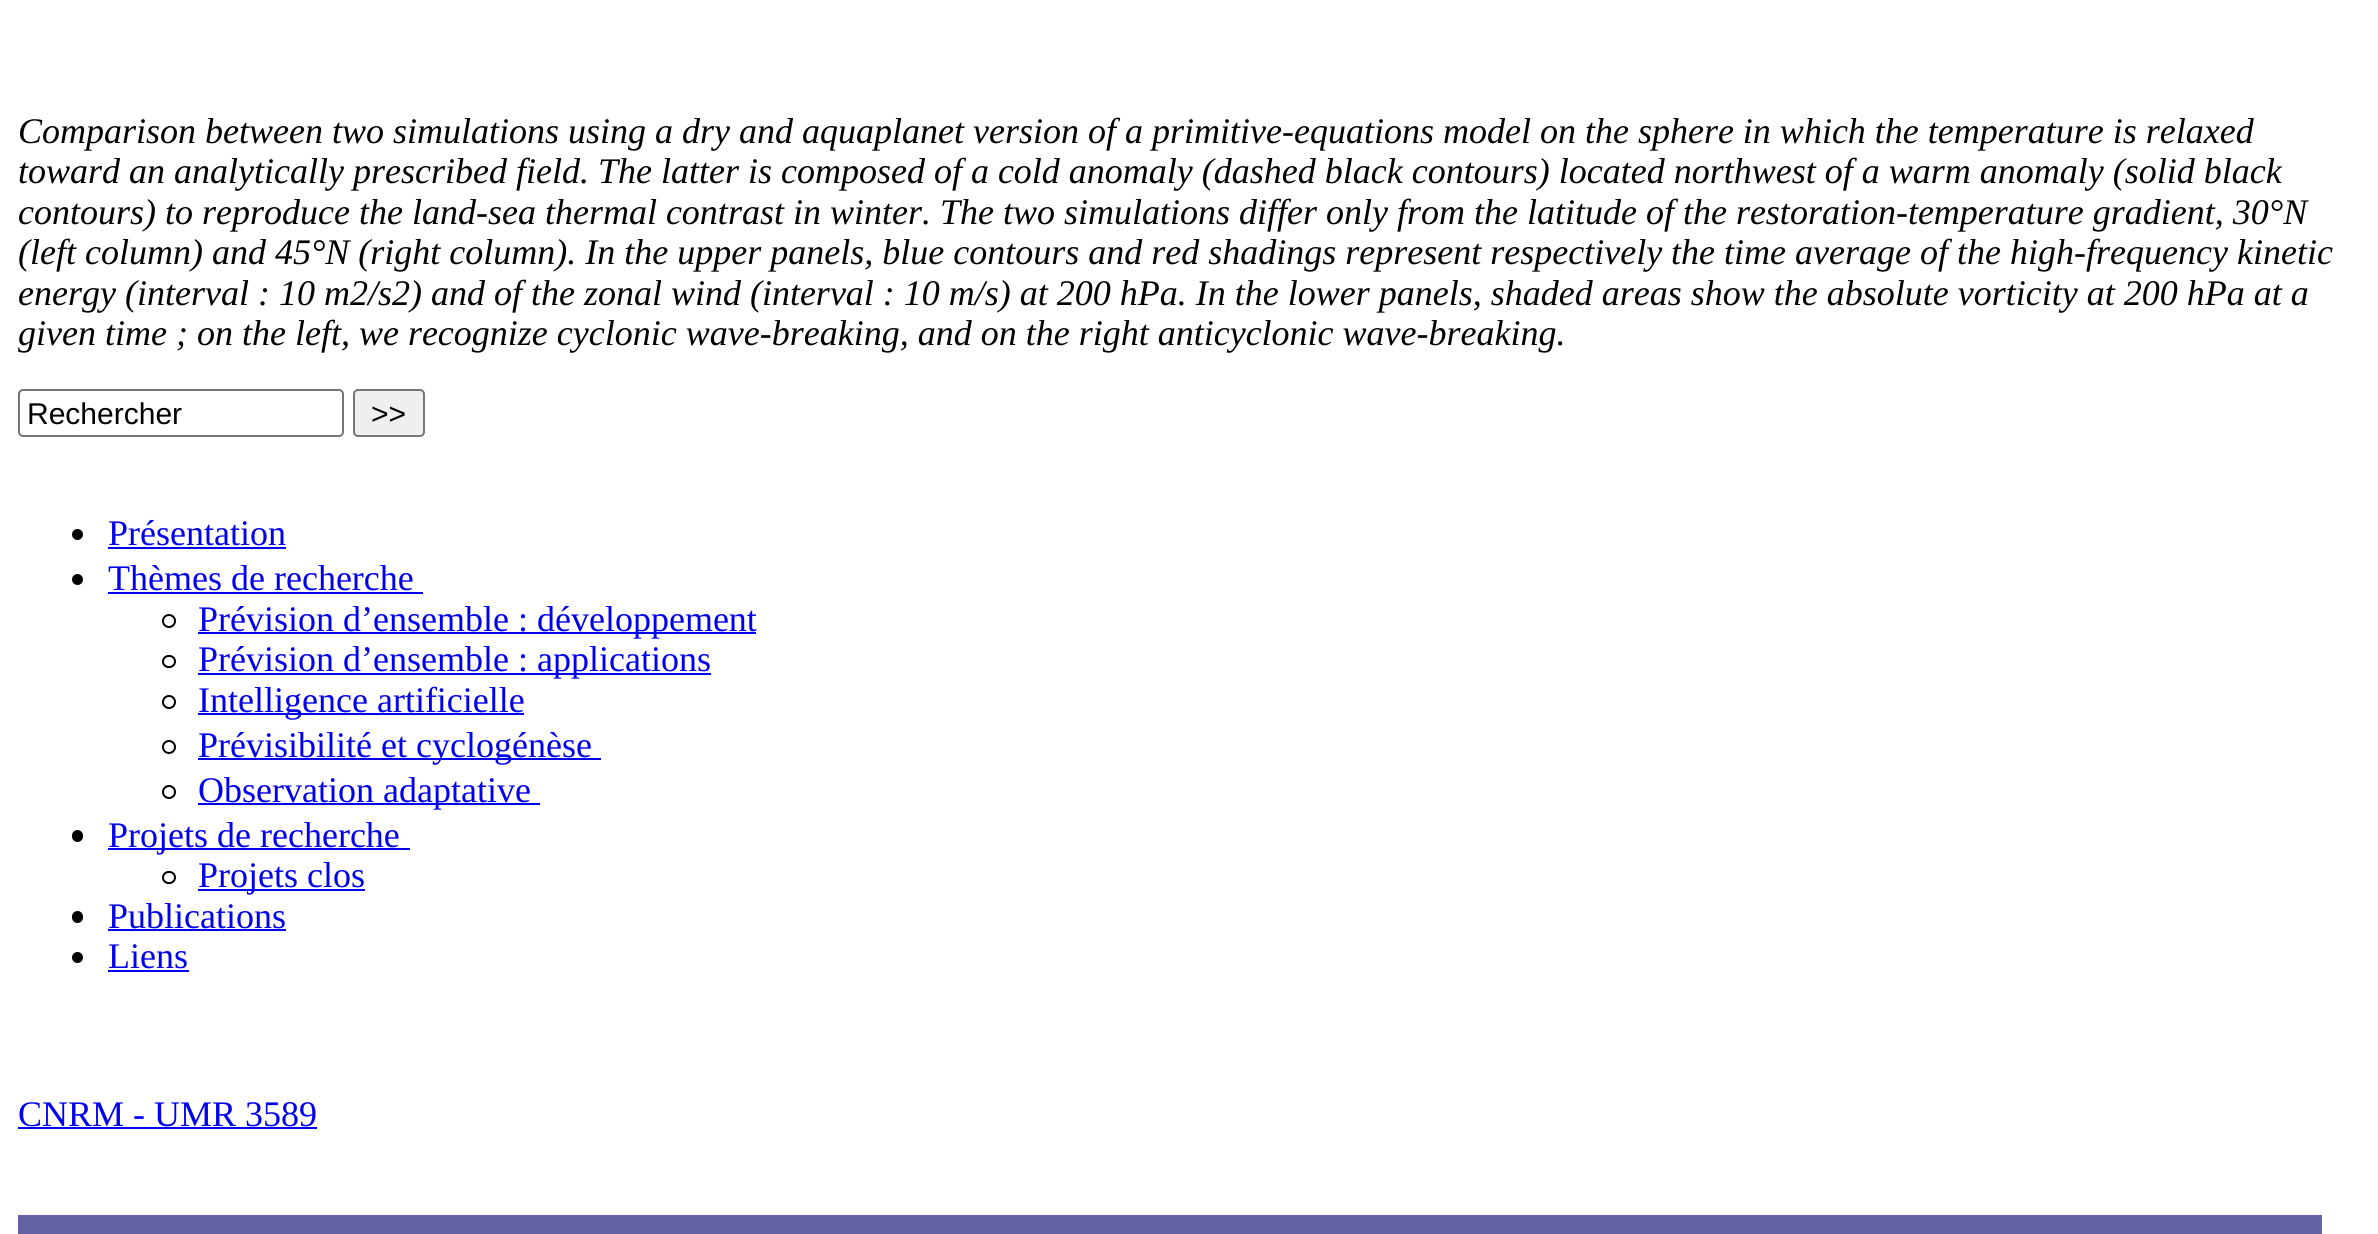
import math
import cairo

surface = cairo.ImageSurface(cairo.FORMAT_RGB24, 2378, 1234)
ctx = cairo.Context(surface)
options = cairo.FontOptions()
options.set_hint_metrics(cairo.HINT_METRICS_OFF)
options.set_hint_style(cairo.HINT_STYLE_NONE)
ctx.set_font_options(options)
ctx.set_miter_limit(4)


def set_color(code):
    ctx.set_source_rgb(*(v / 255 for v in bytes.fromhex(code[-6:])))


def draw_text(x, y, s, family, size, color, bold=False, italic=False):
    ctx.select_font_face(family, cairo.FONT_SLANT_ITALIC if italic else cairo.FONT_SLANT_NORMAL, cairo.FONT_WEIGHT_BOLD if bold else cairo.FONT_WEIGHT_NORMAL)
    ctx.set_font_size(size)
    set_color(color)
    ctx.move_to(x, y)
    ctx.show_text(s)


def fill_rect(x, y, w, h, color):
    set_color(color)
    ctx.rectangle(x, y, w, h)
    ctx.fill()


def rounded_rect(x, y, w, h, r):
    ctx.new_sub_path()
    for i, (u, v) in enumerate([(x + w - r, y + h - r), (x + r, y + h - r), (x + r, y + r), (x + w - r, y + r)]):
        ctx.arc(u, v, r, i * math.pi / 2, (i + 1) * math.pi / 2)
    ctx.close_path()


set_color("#ffffff")
ctx.paint()
draw_text(18, 143, "Comparison between two simulations using a dry and aquaplanet version of a primitive-equations model on the sphere in which the temperature is relaxed", "Liberation Serif", 36, "#000000", italic=True)
draw_text(18, 183, "toward an analytically prescribed field. The latter is composed of a cold anomaly (dashed black contours) located northwest of a warm anomaly (solid black", "Liberation Serif", 36, "#000000", italic=True)
draw_text(18, 224, "contours) to reproduce the land-sea thermal contrast in winter. The two simulations differ only from the latitude of the restoration-temperature gradient, 30°N", "Liberation Serif", 36, "#000000", italic=True)
draw_text(18, 264, "(left column) and 45°N (right column). In the upper panels, blue contours and red shadings represent respectively the time average of the high-frequency kinetic", "Liberation Serif", 36, "#000000", italic=True)
draw_text(18, 305, "energy (interval : 10 m2/s2) and of the zonal wind (interval : 10 m/s) at 200 hPa. In the lower panels, shaded areas show the absolute vorticity at 200 hPa at a", "Liberation Serif", 36, "#000000", italic=True)
draw_text(18, 345, "given time ; on the left, we recognize cyclonic wave-breaking, and on the right anticyclonic wave-breaking.", "Liberation Serif", 36, "#000000", italic=True)
rounded_rect(19, 390, 324, 46, 4)
set_color("#767676")
ctx.stroke()
draw_text(27, 424, "Rechercher", "Liberation Sans", 30, "#000000")
set_color("#efefef")
rounded_rect(354, 390, 70, 46, 4)
ctx.fill_preserve()
set_color("#767676")
ctx.stroke()
draw_text(371, 424, ">>", "Liberation Sans", 30, "#000000")
ctx.new_path()
ctx.arc(77.5, 534.5, 5.5, 0, 2 * math.pi)
ctx.fill()
draw_text(108, 545, "Présentation", "Liberation Serif", 36, "#0000ee")
fill_rect(108, 547, 178, 2, "#0000ee")
set_color("#000000")
ctx.new_path()
ctx.arc(77.5, 579.5, 5.5, 0, 2 * math.pi)
ctx.fill()
draw_text(108, 590, "Thèmes de recherche", "Liberation Serif", 36, "#0000ee")
fill_rect(108, 592, 315, 2, "#0000ee")
ctx.new_path()
ctx.arc(169, 621, 6, 0, 2 * math.pi)
set_color("#000000")
ctx.stroke()
fill_rect(198, 632, 558, 2, "#0000ee")
draw_text(198, 631, "Prévision d’ensemble : développement", "Liberation Serif", 36, "#0000ee")
rounded_rect(163, 656, 12, 11, 5.5)
set_color("#000000")
ctx.stroke()
fill_rect(198, 673, 513, 2, "#0000ee")
draw_text(198, 671, "Prévision d’ensemble : applications", "Liberation Serif", 36, "#0000ee")
ctx.new_path()
ctx.arc(169, 702, 6, 0, 2 * math.pi)
set_color("#000000")
ctx.stroke()
fill_rect(198, 713, 326, 2, "#0000ee")
draw_text(198, 712, "Intelligence artificielle", "Liberation Serif", 36, "#0000ee")
ctx.new_path()
ctx.arc(169, 747, 6, 0, 2 * math.pi)
set_color("#000000")
ctx.stroke()
fill_rect(198, 758, 403, 2, "#0000ee")
draw_text(198, 757, "Prévisibilité et cyclogénèse", "Liberation Serif", 36, "#0000ee")
ctx.new_path()
ctx.arc(169, 792, 6, 0, 2 * math.pi)
set_color("#000000")
ctx.stroke()
fill_rect(198, 803, 342, 2, "#0000ee")
draw_text(198, 802, "Observation adaptative", "Liberation Serif", 36, "#0000ee")
set_color("#000000")
rounded_rect(72, 830, 11, 12, 5.5)
ctx.fill()
fill_rect(108, 848, 302, 2, "#0000ee")
draw_text(108, 847, "Projets de recherche", "Liberation Serif", 36, "#0000ee")
rounded_rect(163, 872, 12, 11, 5.5)
set_color("#000000")
ctx.stroke()
fill_rect(198, 889, 167, 2, "#0000ee")
draw_text(198, 887, "Projets clos", "Liberation Serif", 36, "#0000ee")
set_color("#000000")
rounded_rect(72, 911, 11, 12, 5.5)
ctx.fill()
draw_text(108, 928, "Publications", "Liberation Serif", 36, "#0000ee")
fill_rect(108, 929, 178, 2, "#0000ee")
set_color("#000000")
ctx.new_path()
ctx.arc(77.5, 957.5, 5.5, 0, 2 * math.pi)
ctx.fill()
draw_text(108, 968, "Liens", "Liberation Serif", 36, "#0000ee")
fill_rect(108, 970, 81, 2, "#0000ee")
draw_text(18, 1126, "CNRM - UMR 3589", "Liberation Serif", 36, "#0000ee")
fill_rect(18, 1127, 299, 2, "#0000ee")
fill_rect(18, 1215, 2304, 19, "#6262a4")
surface.write_to_png("output.png")
